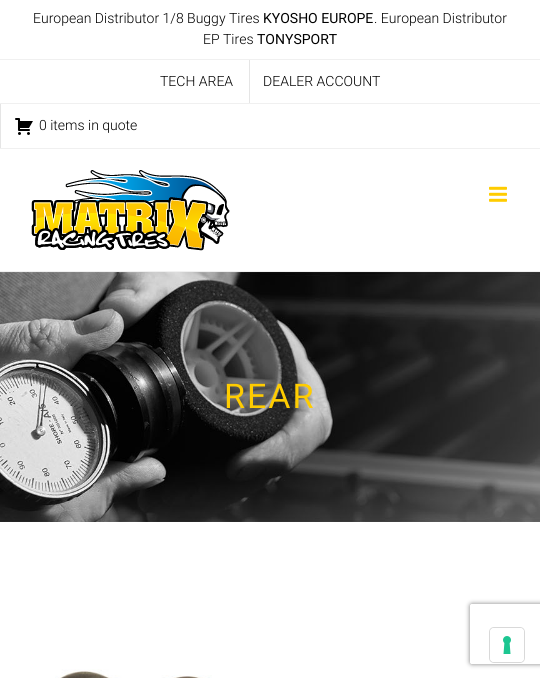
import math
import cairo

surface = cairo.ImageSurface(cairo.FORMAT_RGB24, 540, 678)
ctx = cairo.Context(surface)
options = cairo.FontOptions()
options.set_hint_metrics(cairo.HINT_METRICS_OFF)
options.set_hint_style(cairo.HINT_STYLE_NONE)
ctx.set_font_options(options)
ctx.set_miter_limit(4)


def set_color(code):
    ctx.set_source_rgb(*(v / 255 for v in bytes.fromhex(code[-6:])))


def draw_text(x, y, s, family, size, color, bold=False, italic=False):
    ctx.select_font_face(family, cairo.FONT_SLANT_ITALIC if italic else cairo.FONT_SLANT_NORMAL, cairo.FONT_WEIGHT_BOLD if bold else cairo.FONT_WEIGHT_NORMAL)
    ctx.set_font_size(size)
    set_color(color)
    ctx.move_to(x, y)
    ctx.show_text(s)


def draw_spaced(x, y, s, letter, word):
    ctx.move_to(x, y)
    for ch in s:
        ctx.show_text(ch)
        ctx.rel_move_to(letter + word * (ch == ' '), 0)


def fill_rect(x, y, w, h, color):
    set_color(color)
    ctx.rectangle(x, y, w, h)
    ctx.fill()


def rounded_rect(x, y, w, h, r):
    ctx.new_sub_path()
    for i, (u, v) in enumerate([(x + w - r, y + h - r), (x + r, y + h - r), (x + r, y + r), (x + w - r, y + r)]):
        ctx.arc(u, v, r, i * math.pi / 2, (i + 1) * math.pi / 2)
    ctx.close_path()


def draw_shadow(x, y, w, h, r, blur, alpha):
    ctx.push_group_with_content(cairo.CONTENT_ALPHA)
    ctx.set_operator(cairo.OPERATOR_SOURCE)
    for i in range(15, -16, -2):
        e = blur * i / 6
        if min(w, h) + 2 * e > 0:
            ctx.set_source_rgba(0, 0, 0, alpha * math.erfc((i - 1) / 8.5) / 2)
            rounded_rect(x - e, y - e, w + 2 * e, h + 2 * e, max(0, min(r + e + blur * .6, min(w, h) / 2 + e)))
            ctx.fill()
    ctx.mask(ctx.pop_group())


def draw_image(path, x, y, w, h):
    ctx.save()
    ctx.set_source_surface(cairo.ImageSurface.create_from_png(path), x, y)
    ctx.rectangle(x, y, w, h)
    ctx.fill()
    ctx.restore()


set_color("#ffffff")
ctx.paint()
fill_rect(0, 148, 540, 1, "#f0f0f0")
fill_rect(0, 59, 540, 1, "#f0f0f0")
draw_text(33, 23, "European Distributor 1/8 Buggy Tires", "Roboto Light", 14, "#000000")
draw_text(263, 23, "KYOSHO EUROPE", "Roboto", 14, "#000000")
draw_text(374, 23, ". European Distributor", "Roboto Light", 14, "#000000")
draw_text(203, 44, "EP Tires", "Roboto Light", 14, "#000000")
draw_text(257, 44, "TONYSPORT", "Roboto", 14, "#000000")
draw_text(160, 86, "TECH AREA", "Roboto Light", 14, "#000000")
fill_rect(249, 60, 1, 44, "#e5e5e5")
draw_text(263, 86, "DEALER ACCOUNT", "Roboto Light", 14, "#000000")
fill_rect(0, 103, 540, 1, "#f0f0f0")
fill_rect(0, 104, 1, 44, "#e5e5e5")
draw_image("assets/img1.png", 15, 118, 18, 17)
draw_text(39, 130, "0 items in quote", "Roboto Light", 14, "#000000")
fill_rect(0, 271, 540, 1, "#f0f0f0")
draw_image("assets/img2.png", 31, 170, 199, 81)
draw_image("assets/img3.png", 489, 186, 18, 16)
draw_image("assets/img4.png", 0, 272, 540, 250)
ctx.select_font_face("Roboto")
ctx.set_font_size(34)
set_color("#ffcc00")
draw_spaced(224, 408, "REAR", 2, 0)
draw_image("assets/img5.png", 55, 669, 157, 9)
ctx.save()
ctx.set_fill_rule(cairo.FILL_RULE_EVEN_ODD)
ctx.new_path()
ctx.move_to(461, 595)
ctx.line_to(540, 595)
ctx.line_to(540, 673)
ctx.line_to(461, 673)
ctx.close_path()
ctx.move_to(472, 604)
ctx.line_to(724, 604)
ctx.curve_to(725, 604, 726, 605, 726, 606)
ctx.line_to(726, 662)
ctx.curve_to(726, 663, 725, 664, 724, 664)
ctx.line_to(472, 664)
ctx.curve_to(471, 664, 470, 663, 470, 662)
ctx.line_to(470, 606)
ctx.curve_to(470, 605, 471, 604, 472, 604)
ctx.close_path()
ctx.clip()
set_color("#808080")
draw_shadow(470, 604, 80, 60, 2, 2.5, 1)
ctx.restore()
rounded_rect(489.5, 627.5, 35, 35, 4.5)
set_color("#d9d9d9")
ctx.set_line_width(1)
ctx.stroke()
set_color("#ffffff")
rounded_rect(490, 628, 34, 34, 4)
ctx.fill()
draw_image("assets/img6.png", 503, 636, 8, 18)
surface.write_to_png("output.png")
